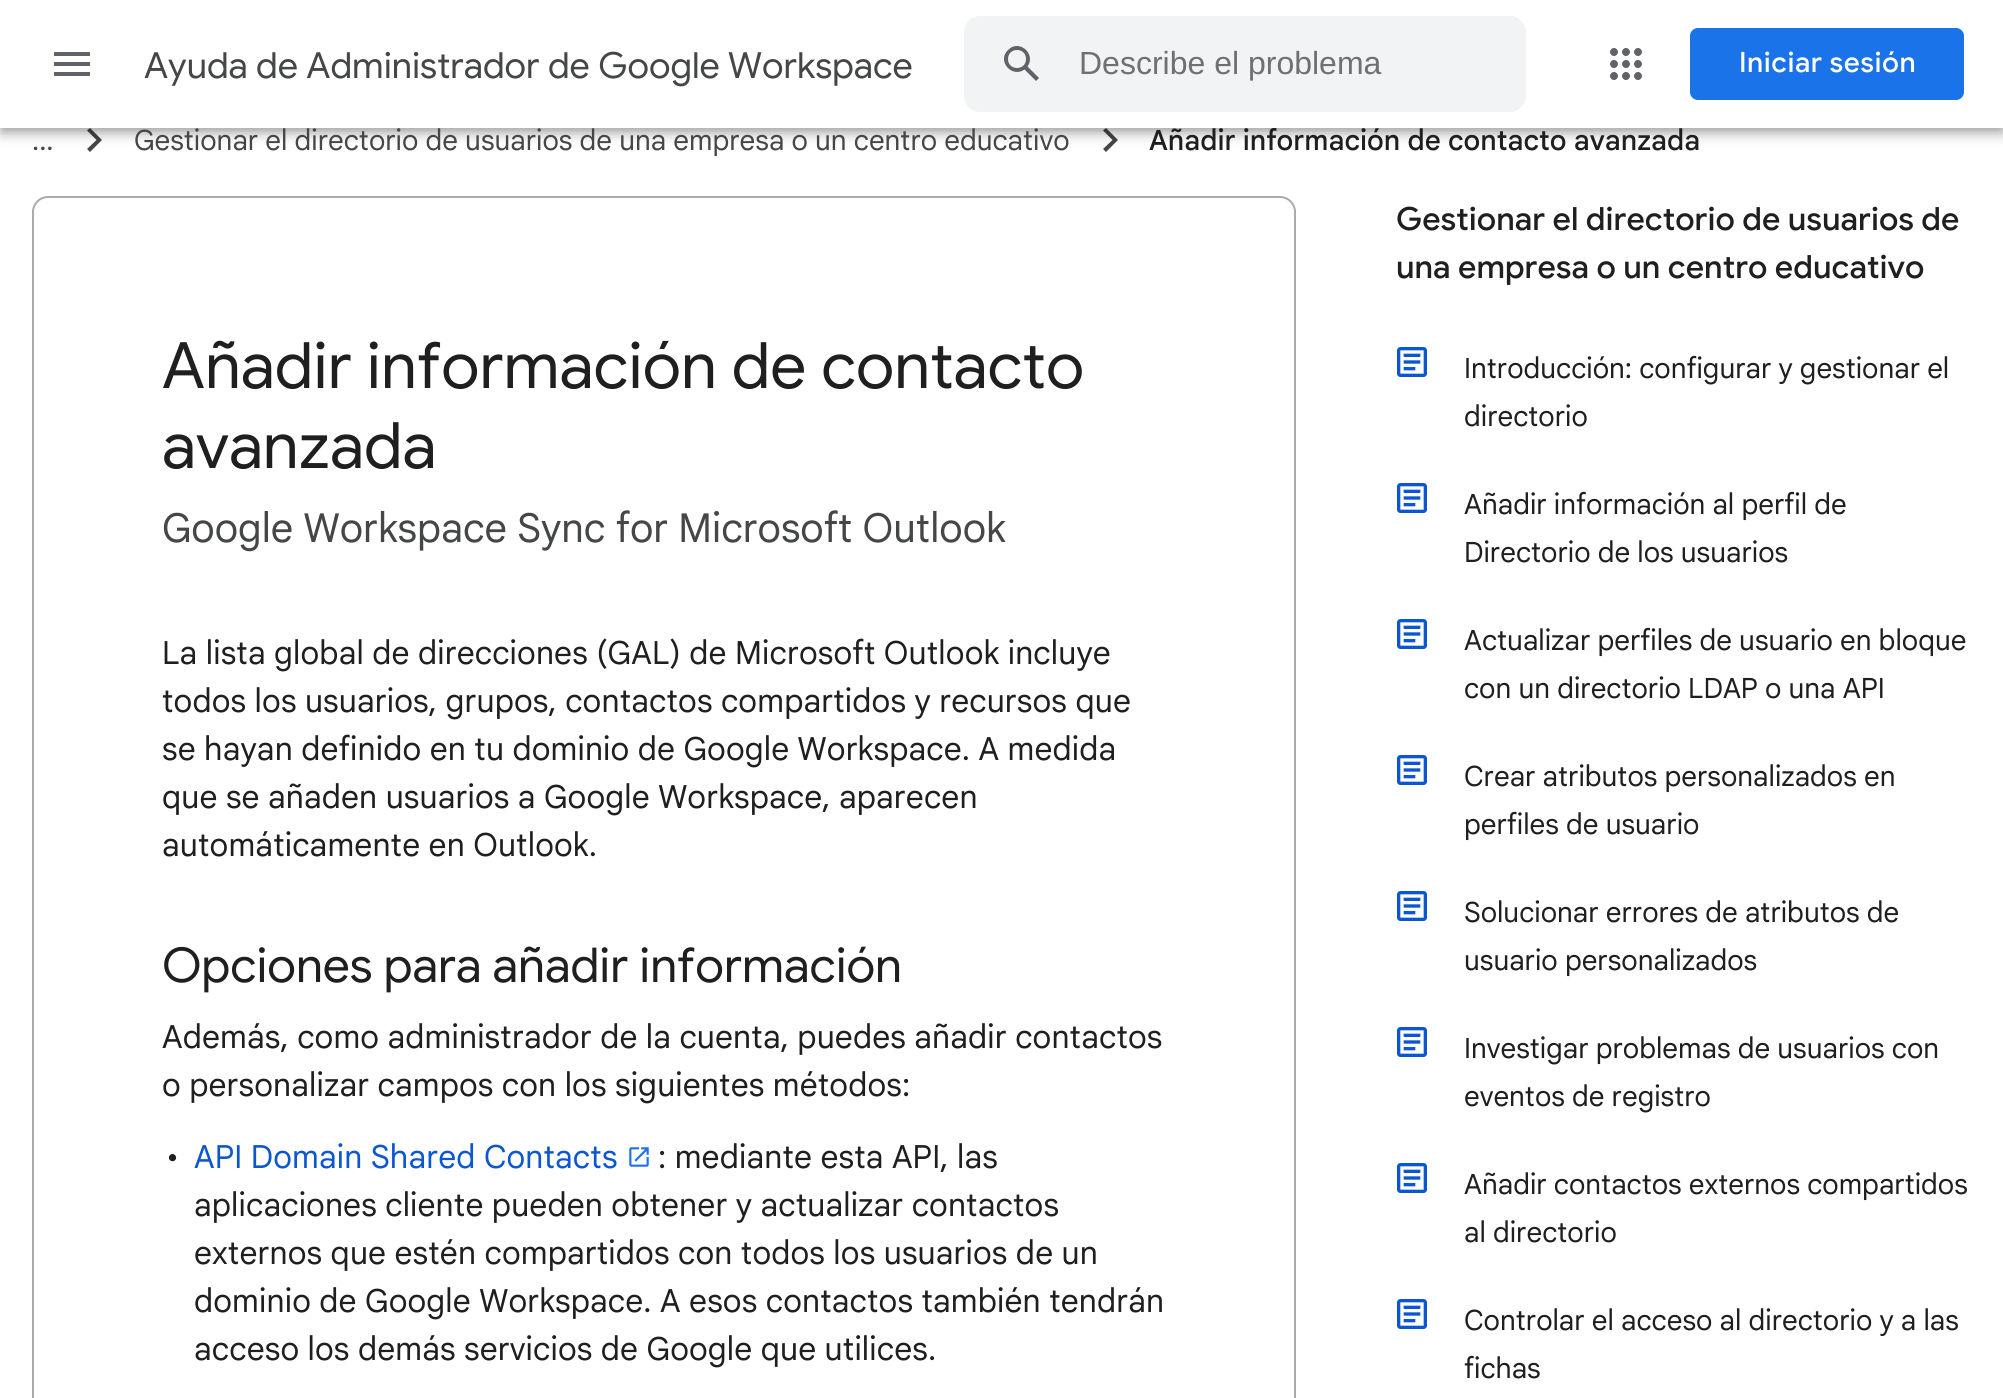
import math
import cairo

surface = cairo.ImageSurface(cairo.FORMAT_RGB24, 2003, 1398)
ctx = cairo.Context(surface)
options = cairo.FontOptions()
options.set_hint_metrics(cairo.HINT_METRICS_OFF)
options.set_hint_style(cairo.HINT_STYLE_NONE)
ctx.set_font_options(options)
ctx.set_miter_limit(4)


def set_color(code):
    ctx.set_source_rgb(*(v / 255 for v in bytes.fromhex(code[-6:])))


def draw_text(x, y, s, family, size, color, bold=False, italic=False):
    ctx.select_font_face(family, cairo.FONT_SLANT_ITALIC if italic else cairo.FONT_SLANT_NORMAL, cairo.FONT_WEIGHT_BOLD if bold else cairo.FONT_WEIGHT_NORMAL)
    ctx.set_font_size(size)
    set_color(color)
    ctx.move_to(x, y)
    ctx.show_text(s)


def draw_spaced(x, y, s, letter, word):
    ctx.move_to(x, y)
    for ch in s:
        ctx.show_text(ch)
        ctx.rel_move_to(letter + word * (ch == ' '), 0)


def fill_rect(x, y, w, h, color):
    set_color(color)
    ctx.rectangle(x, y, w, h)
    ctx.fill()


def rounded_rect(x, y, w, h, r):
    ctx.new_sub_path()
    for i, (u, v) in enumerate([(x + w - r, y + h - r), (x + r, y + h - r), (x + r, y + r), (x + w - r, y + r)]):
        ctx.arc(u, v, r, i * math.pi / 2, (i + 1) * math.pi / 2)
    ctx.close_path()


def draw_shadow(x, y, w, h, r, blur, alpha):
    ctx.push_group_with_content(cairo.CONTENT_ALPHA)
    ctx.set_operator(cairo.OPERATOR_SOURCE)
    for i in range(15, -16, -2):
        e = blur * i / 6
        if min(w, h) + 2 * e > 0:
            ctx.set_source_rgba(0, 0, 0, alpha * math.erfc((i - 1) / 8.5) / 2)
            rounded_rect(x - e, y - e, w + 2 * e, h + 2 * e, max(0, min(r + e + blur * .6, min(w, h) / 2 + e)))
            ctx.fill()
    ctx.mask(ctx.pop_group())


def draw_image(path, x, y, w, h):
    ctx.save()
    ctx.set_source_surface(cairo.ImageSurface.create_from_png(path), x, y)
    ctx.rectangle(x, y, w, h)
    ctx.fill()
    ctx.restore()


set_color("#ffffff")
ctx.paint()
set_color("#444746")
ctx.new_path()
ctx.move_to(87, 149)
ctx.line_to(96.5, 140)
ctx.line_to(87, 130.5)
ctx.line_to(90, 128)
ctx.line_to(102, 140)
ctx.line_to(90, 152)
ctx.close_path()
ctx.fill()
ctx.new_path()
ctx.move_to(1103, 149)
ctx.line_to(1112.5, 140)
ctx.line_to(1103, 130.5)
ctx.line_to(1106, 128)
ctx.line_to(1118, 140)
ctx.line_to(1106, 152)
ctx.close_path()
ctx.fill()
set_color("#000000")
draw_shadow(2, 6, 2000, 124, 0, 4, 0.2)
draw_shadow(0, 2, 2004, 128, 0, 10, 0.12)
draw_shadow(0, 8, 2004, 128, 0, 5, 0.14)
draw_text(1149, 150, "Añadir información de contacto avanzada", "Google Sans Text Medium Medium", 28, "#1f1f1f")
fill_rect(0, 0, 2003, 128, "#ffffff")
set_color("#5f6368")
ctx.new_path()
ctx.move_to(54, 76)
ctx.line_to(90, 76)
ctx.line_to(90, 72)
ctx.line_to(54, 72)
ctx.close_path()
ctx.move_to(54, 66)
ctx.line_to(90, 66)
ctx.line_to(90, 62)
ctx.line_to(54, 62)
ctx.close_path()
ctx.move_to(54, 52)
ctx.line_to(54, 56)
ctx.line_to(90, 56)
ctx.line_to(90, 52)
ctx.close_path()
ctx.fill()
draw_text(144, 78, "Ayuda de Administrador de Google Workspace", "Google Sans", 36, "#444746")
set_color("#f1f3f4")
rounded_rect(964, 16, 562, 96, 16)
ctx.fill()
set_color("#5f6368")
ctx.new_path()
ctx.move_to(1039, 78)
ctx.line_to(1027.5, 66.5)
ctx.curve_to(1036.5, 54, 1019, 38.5, 1008, 50)
ctx.curve_to(996.5, 61, 1012, 78.5, 1024.5, 69.5)
ctx.line_to(1036, 81)
ctx.close_path()
ctx.move_to(1008, 59)
ctx.curve_to(1008, 47, 1026, 47, 1026, 59)
ctx.curve_to(1026, 71, 1008, 71, 1008, 59)
ctx.close_path()
ctx.fill()
draw_text(1079, 74, "Describe el problema", "Liberation Sans", 32, "#6f7070")
draw_image("assets/img1.png", 1610, 48, 32, 32)
set_color("#1a73e8")
rounded_rect(1690, 28, 274, 72, 8)
ctx.fill()
ctx.select_font_face("Google Sans Medium")
ctx.set_font_size(28)
set_color("#ffffff")
draw_spaced(1739, 72, "Iniciar sesión", 0.5, 0)
draw_text(32, 150, "...", "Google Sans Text", 28, "#444746")
draw_text(134, 150, "Gestionar el directorio de usuarios de una empresa o un centro educativo", "Google Sans Text", 28, "#444746")
rounded_rect(33, 197, 1262, 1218, 15)
set_color("#a9acaa")
ctx.stroke()
draw_text(162, 388, "Añadir información de contacto", "Google Sans", 64, "#1f1f1f")
draw_text(162, 468, "avanzada", "Google Sans", 64, "#1f1f1f")
draw_text(162, 542, "Google Workspace Sync for Microsoft Outlook", "Google Sans Text", 40, "#444746")
ctx.set_font_size(32)
set_color("#1f1f1f")
draw_spaced(162, 664, "La lista global de direcciones (GAL) de Microsoft Outlook incluye", 0.15, 0)
draw_spaced(162, 712, "todos los usuarios, grupos, contactos compartidos y recursos que", 0.15, 0)
draw_spaced(162, 760, "se hayan definido en tu dominio de Google Workspace. A medida", 0.15, 0)
draw_spaced(162, 808, "que se añaden usuarios a Google Workspace, aparecen", 0.15, 0)
draw_spaced(162, 856, "automáticamente en Outlook.", 0.15, 0)
draw_text(162, 982, "Opciones para añadir información", "Google Sans", 48, "#1f1f1f")
ctx.select_font_face("Google Sans Text")
ctx.set_font_size(32)
draw_spaced(162, 1048, "Además, como administrador de la cuenta, puedes añadir contactos", 0.15, 0)
draw_spaced(162, 1096, "o personalizar campos con los siguientes métodos:", 0.15, 0)
draw_spaced(166, 1168, "•", 0.15, 0)
set_color("#0b57d0")
draw_spaced(194, 1168, "API Domain Shared Contacts", 0.15, 0)
draw_image("assets/img2.png", 629, 1147, 20, 20)
set_color("#1f1f1f")
draw_spaced(658, 1168, ": mediante esta API, las", 0.15, 0)
draw_spaced(194, 1216, "aplicaciones cliente pueden obtener y actualizar contactos", 0.15, 0)
draw_spaced(194, 1264, "externos que estén compartidos con todos los usuarios de un", 0.15, 0)
draw_spaced(194, 1312, "dominio de Google Workspace. A esos contactos también tendrán", 0.15, 0)
draw_spaced(194, 1360, "acceso los demás servicios de Google que utilices.", 0.15, 0)
draw_text(1396, 230, "Gestionar el directorio de usuarios de", "Google Sans Medium", 32, "#1f1f1f")
draw_text(1396, 278, "una empresa o un centro educativo", "Google Sans Medium", 32, "#1f1f1f")
draw_image("assets/img3.png", 1397, 347, 30, 30)
draw_text(1464, 378, "Introducción: configurar y gestionar el", "Google Sans Text", 28, "#1f1f1f")
draw_text(1464, 426, "directorio", "Google Sans Text", 28, "#1f1f1f")
draw_image("assets/img3.png", 1397, 483, 30, 30)
draw_text(1464, 514, "Añadir información al perfil de", "Google Sans Text", 28, "#1f1f1f")
draw_text(1464, 562, "Directorio de los usuarios", "Google Sans Text", 28, "#1f1f1f")
draw_image("assets/img3.png", 1397, 619, 30, 30)
draw_text(1464, 650, "Actualizar perfiles de usuario en bloque", "Google Sans Text", 28, "#1f1f1f")
draw_text(1464, 698, "con un directorio LDAP o una API", "Google Sans Text", 28, "#1f1f1f")
draw_image("assets/img3.png", 1397, 755, 30, 30)
draw_text(1464, 786, "Crear atributos personalizados en", "Google Sans Text", 28, "#1f1f1f")
draw_text(1464, 834, "perfiles de usuario", "Google Sans Text", 28, "#1f1f1f")
draw_image("assets/img3.png", 1397, 891, 30, 30)
draw_text(1464, 922, "Solucionar errores de atributos de", "Google Sans Text", 28, "#1f1f1f")
draw_text(1464, 970, "usuario personalizados", "Google Sans Text", 28, "#1f1f1f")
draw_image("assets/img3.png", 1397, 1027, 30, 30)
draw_text(1464, 1058, "Investigar problemas de usuarios con", "Google Sans Text", 28, "#1f1f1f")
draw_text(1464, 1106, "eventos de registro", "Google Sans Text", 28, "#1f1f1f")
draw_image("assets/img3.png", 1397, 1163, 30, 30)
draw_text(1464, 1194, "Añadir contactos externos compartidos", "Google Sans Text", 28, "#1f1f1f")
draw_text(1464, 1242, "al directorio", "Google Sans Text", 28, "#1f1f1f")
draw_image("assets/img3.png", 1397, 1299, 30, 30)
draw_text(1464, 1330, "Controlar el acceso al directorio y a las", "Google Sans Text", 28, "#1f1f1f")
draw_text(1464, 1378, "fichas", "Google Sans Text", 28, "#1f1f1f")
surface.write_to_png("output.png")
